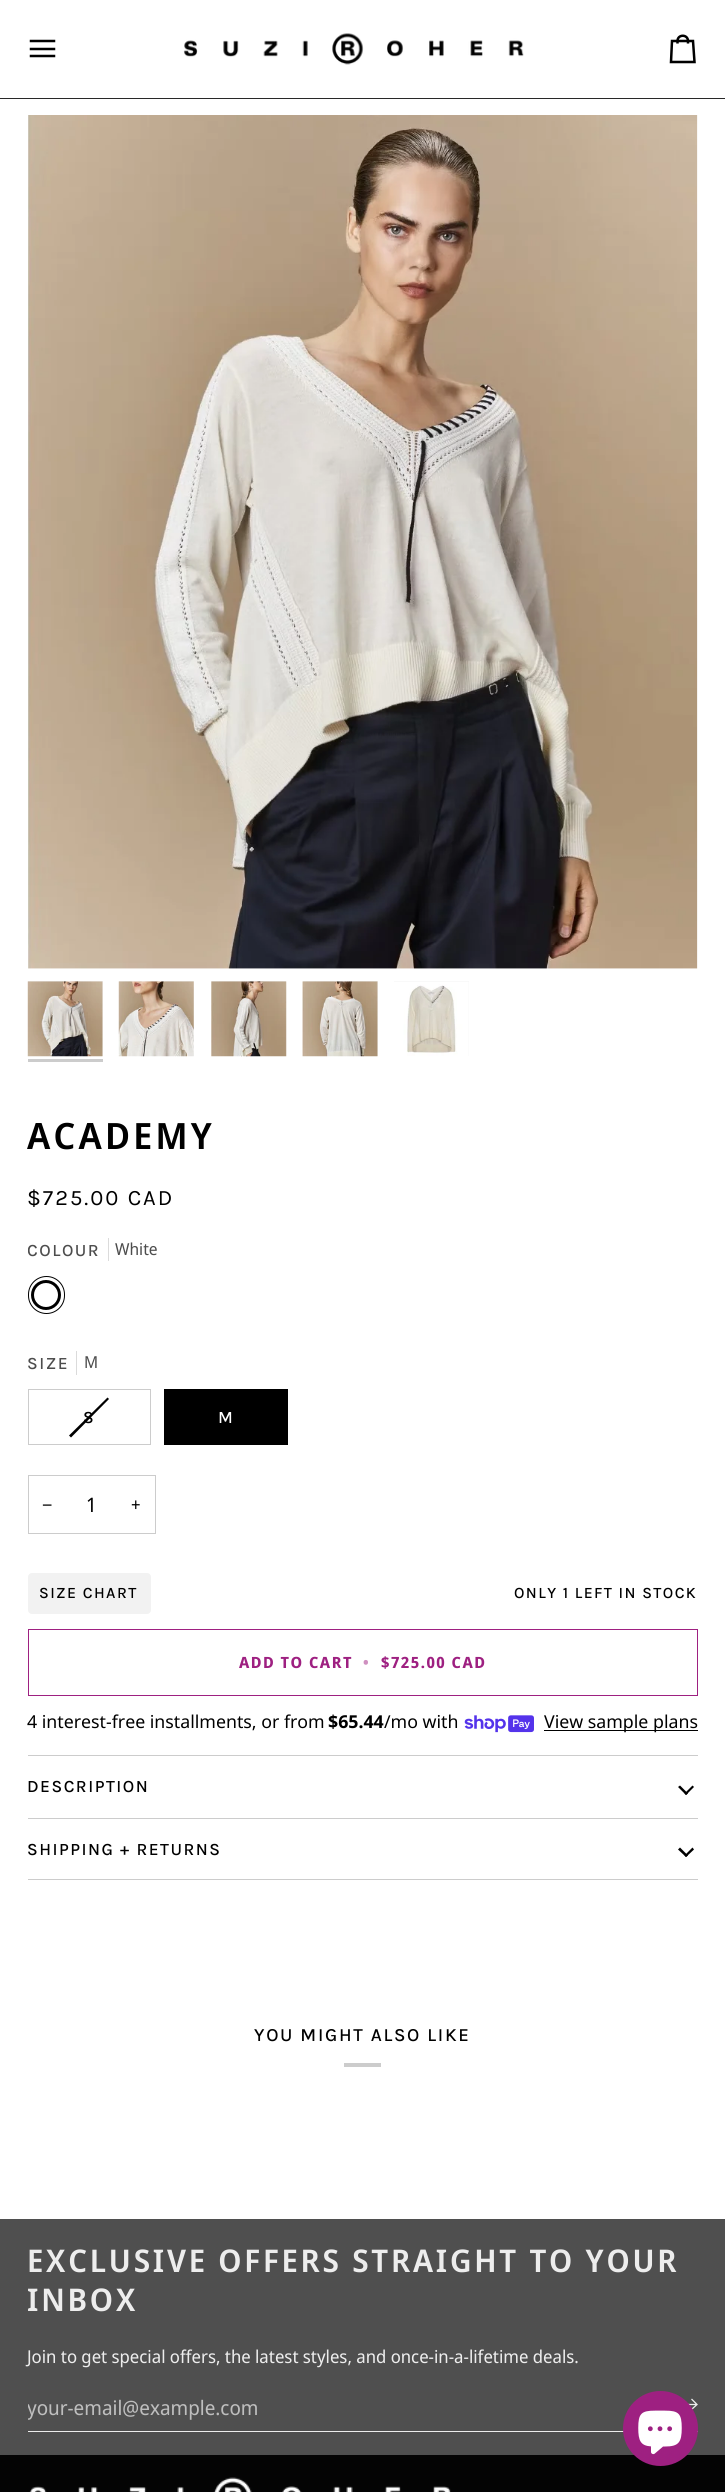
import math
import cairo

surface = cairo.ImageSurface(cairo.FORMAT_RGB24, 725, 2492)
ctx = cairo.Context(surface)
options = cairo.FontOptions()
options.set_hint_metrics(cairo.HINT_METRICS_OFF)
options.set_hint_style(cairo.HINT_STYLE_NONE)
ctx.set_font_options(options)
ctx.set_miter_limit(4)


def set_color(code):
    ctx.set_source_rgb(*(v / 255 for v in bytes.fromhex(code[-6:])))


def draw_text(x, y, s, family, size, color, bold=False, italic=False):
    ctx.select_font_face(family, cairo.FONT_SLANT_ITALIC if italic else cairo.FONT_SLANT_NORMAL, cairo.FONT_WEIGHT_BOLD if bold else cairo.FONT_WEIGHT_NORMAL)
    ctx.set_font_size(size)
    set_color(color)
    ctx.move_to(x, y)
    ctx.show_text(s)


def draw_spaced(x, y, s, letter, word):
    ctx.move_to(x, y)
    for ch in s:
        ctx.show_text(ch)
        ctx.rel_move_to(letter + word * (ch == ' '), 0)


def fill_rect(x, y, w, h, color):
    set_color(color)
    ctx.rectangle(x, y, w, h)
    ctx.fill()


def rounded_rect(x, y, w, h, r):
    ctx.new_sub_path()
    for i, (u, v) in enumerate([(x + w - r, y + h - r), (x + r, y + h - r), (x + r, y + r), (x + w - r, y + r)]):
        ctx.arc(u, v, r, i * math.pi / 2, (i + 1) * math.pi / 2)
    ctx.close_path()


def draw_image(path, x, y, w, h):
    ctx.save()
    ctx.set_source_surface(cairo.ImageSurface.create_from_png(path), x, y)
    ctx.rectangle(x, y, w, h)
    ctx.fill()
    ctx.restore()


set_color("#ffffff")
ctx.paint()
fill_rect(0, 98, 725, 1, "#282828")
ctx.new_path()
ctx.move_to(54, 41)
ctx.line_to(31, 41)
ctx.move_to(54, 49)
ctx.line_to(31, 49)
ctx.move_to(54, 56)
ctx.line_to(31, 56)
set_color("#000000")
ctx.set_line_width(2.5)
ctx.set_line_cap(cairo.LINE_CAP_SQUARE)
ctx.stroke()
draw_image("assets/img1.png", 183, 33, 341, 32)
ctx.new_path()
ctx.move_to(688, 43.5)
ctx.line_to(688, 41)
ctx.line_to(693, 41)
ctx.line_to(694.5, 62)
ctx.line_to(671, 62)
ctx.line_to(672, 41)
ctx.line_to(677.5, 41)
ctx.curve_to(677.5, 34, 688, 34, 688, 41)
ctx.line_to(677.5, 41)
ctx.line_to(677.5, 43.5)
ctx.set_line_cap(cairo.LINE_CAP_BUTT)
ctx.stroke()
draw_image("assets/img2.png", 28, 115, 670, 854)
fill_rect(28, 981, 75, 75, "#f2f2f2")
draw_image("assets/img3.png", 27, 981, 76, 76)
fill_rect(28, 1059, 75, 3, "#cccccc")
fill_rect(119, 981, 75, 75, "#f2f2f2")
draw_image("assets/img4.png", 118, 981, 76, 76)
fill_rect(211, 981, 75, 75, "#f2f2f2")
draw_image("assets/img5.png", 211, 981, 76, 76)
fill_rect(303, 981, 75, 75, "#f2f2f2")
draw_image("assets/img6.png", 302, 981, 76, 76)
fill_rect(394, 981, 75, 75, "#f2f2f2")
draw_image("assets/img7.png", 394, 981, 75, 75)
ctx.select_font_face("Noto Sans Display SemiBold")
ctx.set_font_size(36.25)
set_color("#000000")
draw_spaced(27, 1149, "ACADEMY", 3.25, 0)
ctx.select_font_face("Karla")
ctx.set_font_size(22)
draw_spaced(27, 1205, "$725.00 CAD", 2, 0)
ctx.save()
ctx.rectangle(28, 1238, 72, 25)
ctx.clip()
ctx.select_font_face("Karla Medium")
ctx.set_font_size(17.25)
set_color("#4d4d4d")
draw_spaced(27, 1256, "COLOUR", 1.5, 0)
ctx.restore()
fill_rect(108, 1238, 1, 23, "#dbdbdb")
draw_text(115, 1255, "White", "Noto Sans Display", 16.5, "#4d4d4d")
rounded_rect(28.5, 1276.5, 36, 37, 18)
set_color("#000000")
ctx.set_line_width(1)
ctx.stroke()
ctx.arc(46, 1295, 13.5, 0, 2 * math.pi)
ctx.set_line_width(3)
ctx.stroke()
ctx.select_font_face("Karla Medium")
ctx.set_font_size(17.25)
set_color("#4d4d4d")
draw_spaced(27, 1369, "SIZE", 1.5, 0)
fill_rect(76, 1351, 1, 24, "#dbdbdb")
draw_text(84, 1368, "M", "Noto Sans Display", 16.5, "#4d4d4d")
ctx.rectangle(28.5, 1389.5, 122, 55)
set_color("#cccccc")
ctx.set_line_width(1)
ctx.stroke()
set_color("#000000")
ctx.new_path()
ctx.move_to(107.5, 1397.5)
ctx.line_to(109, 1399)
ctx.line_to(71, 1437.5)
ctx.line_to(69, 1435.5)
ctx.close_path()
ctx.fill()
ctx.select_font_face("Karla Medium")
ctx.set_font_size(17.25)
draw_spaced(83, 1423, "S", 1.5, 0)
fill_rect(164, 1389, 124, 56, "#000000")
set_color("#ffffff")
draw_spaced(218, 1423, "M", 1.5, 0)
ctx.rectangle(28.5, 1475.5, 127, 58)
set_color("#cccccc")
ctx.stroke()
draw_text(42, 1511, "−", "Liberation Sans", 17.75, "#000000")
draw_text(86, 1512, "1", "Noto Sans Display", 20, "#000000")
draw_text(131, 1511, "+", "Noto Sans Display", 17.75, "#000000")
set_color("#f2f2f2")
rounded_rect(28, 1573, 123, 41, 4)
ctx.fill()
ctx.select_font_face("Karla Medium")
ctx.set_font_size(15.75)
set_color("#000000")
draw_spaced(39, 1598, "SIZE CHART", 1.4, 0)
draw_spaced(514, 1598, "ONLY 1 LEFT IN STOCK", 1.4, 0)
ctx.rectangle(28.5, 1629.5, 669, 66)
set_color("#9e2081")
ctx.stroke()
ctx.select_font_face("Noto Sans Display", cairo.FONT_SLANT_NORMAL, cairo.FONT_WEIGHT_BOLD)
ctx.set_font_size(15.5)
draw_spaced(239, 1668, "ADD TO CART", 1.5, 0)
set_color("#cf90c0")
draw_spaced(363, 1668, "•", 1.5, 0)
set_color("#9e2081")
draw_spaced(381, 1668, "$725.00 CAD", 1.5, 0)
draw_text(27, 1728, "4 interest-free installments, or from", "Noto Sans", 17.75, "#000000")
draw_text(328, 1728, "$65.44", "Noto Sans", 17.75, "#000000", bold=True)
draw_text(384, 1728, "/mo with", "Noto Sans", 17.75, "#000000")
draw_image("assets/img8.png", 464, 1715, 70, 18)
fill_rect(544, 1730, 154, 1, "#000000")
draw_text(544, 1728, "View sample plans", "Noto Sans", 17.75, "#000000")
fill_rect(28, 1755, 670, 1, "#cccccc")
fill_rect(28, 1818, 670, 1, "#cccccc")
ctx.select_font_face("Karla Medium")
ctx.set_font_size(17.25)
set_color("#000000")
draw_spaced(27, 1792, "DESCRIPTION", 1.5, 0)
ctx.new_path()
ctx.move_to(684.5, 1793.5)
ctx.line_to(692.5, 1785.5)
ctx.line_to(694, 1787)
ctx.line_to(686, 1795)
ctx.close_path()
ctx.fill()
ctx.new_path()
ctx.move_to(678, 1787)
ctx.line_to(680, 1785.5)
ctx.line_to(688, 1793.5)
ctx.line_to(686, 1795)
ctx.close_path()
ctx.fill()
fill_rect(28, 1879, 670, 1, "#cccccc")
set_color("#000000")
draw_spaced(27, 1855, "SHIPPING + RETURNS", 1.5, 0)
ctx.new_path()
ctx.move_to(684.5, 1855.5)
ctx.line_to(692.5, 1847.5)
ctx.line_to(694, 1849.5)
ctx.line_to(686, 1857)
ctx.close_path()
ctx.fill()
ctx.new_path()
ctx.move_to(678, 1849.5)
ctx.line_to(680, 1847.5)
ctx.line_to(688, 1855.5)
ctx.line_to(686, 1857)
ctx.close_path()
ctx.fill()
ctx.set_font_size(18.5)
draw_spaced(254, 2041, "YOU MIGHT ALSO LIKE", 1.7, 0)
fill_rect(344, 2063, 37, 4, "#cccccc")
fill_rect(0, 2455, 725, 37, "#040404")
fill_rect(0, 2219, 725, 236, "#4f4f4f")
ctx.select_font_face("Noto Sans Display SemiBold")
ctx.set_font_size(31.25)
set_color("#ededed")
draw_spaced(27, 2272, "EXCLUSIVE OFFERS STRAIGHT TO YOUR", 2.8, 0)
draw_spaced(27, 2311, "INBOX", 2.8, 0)
draw_text(27, 2363, "Join to get special offers, the latest styles, and once-in-a-lifetime deals.", "Noto Sans Display", 17.75, "#ededed")
fill_rect(28, 2431, 670, 1, "#ededed")
ctx.save()
ctx.rectangle(28, 2394, 616, 27)
ctx.clip()
draw_text(27, 2415, "your-email@example.com", "Noto Sans Display", 20, "#bebebe")
ctx.restore()
ctx.new_path()
ctx.move_to(691.5, 2399)
ctx.line_to(697, 2404.5)
ctx.line_to(691.5, 2409.5)
ctx.move_to(672, 2404.5)
ctx.line_to(697, 2404.5)
ctx.set_line_width(1.3)
ctx.stroke()
draw_image("assets/img9.png", 29, 2477, 422, 15)
set_color("#9e2081")
ctx.arc(660.5, 2428.5, 37.5, 0, 2 * math.pi)
ctx.fill()
draw_image("assets/img10.png", 638, 2410, 44, 45)
surface.write_to_png("output.png")
